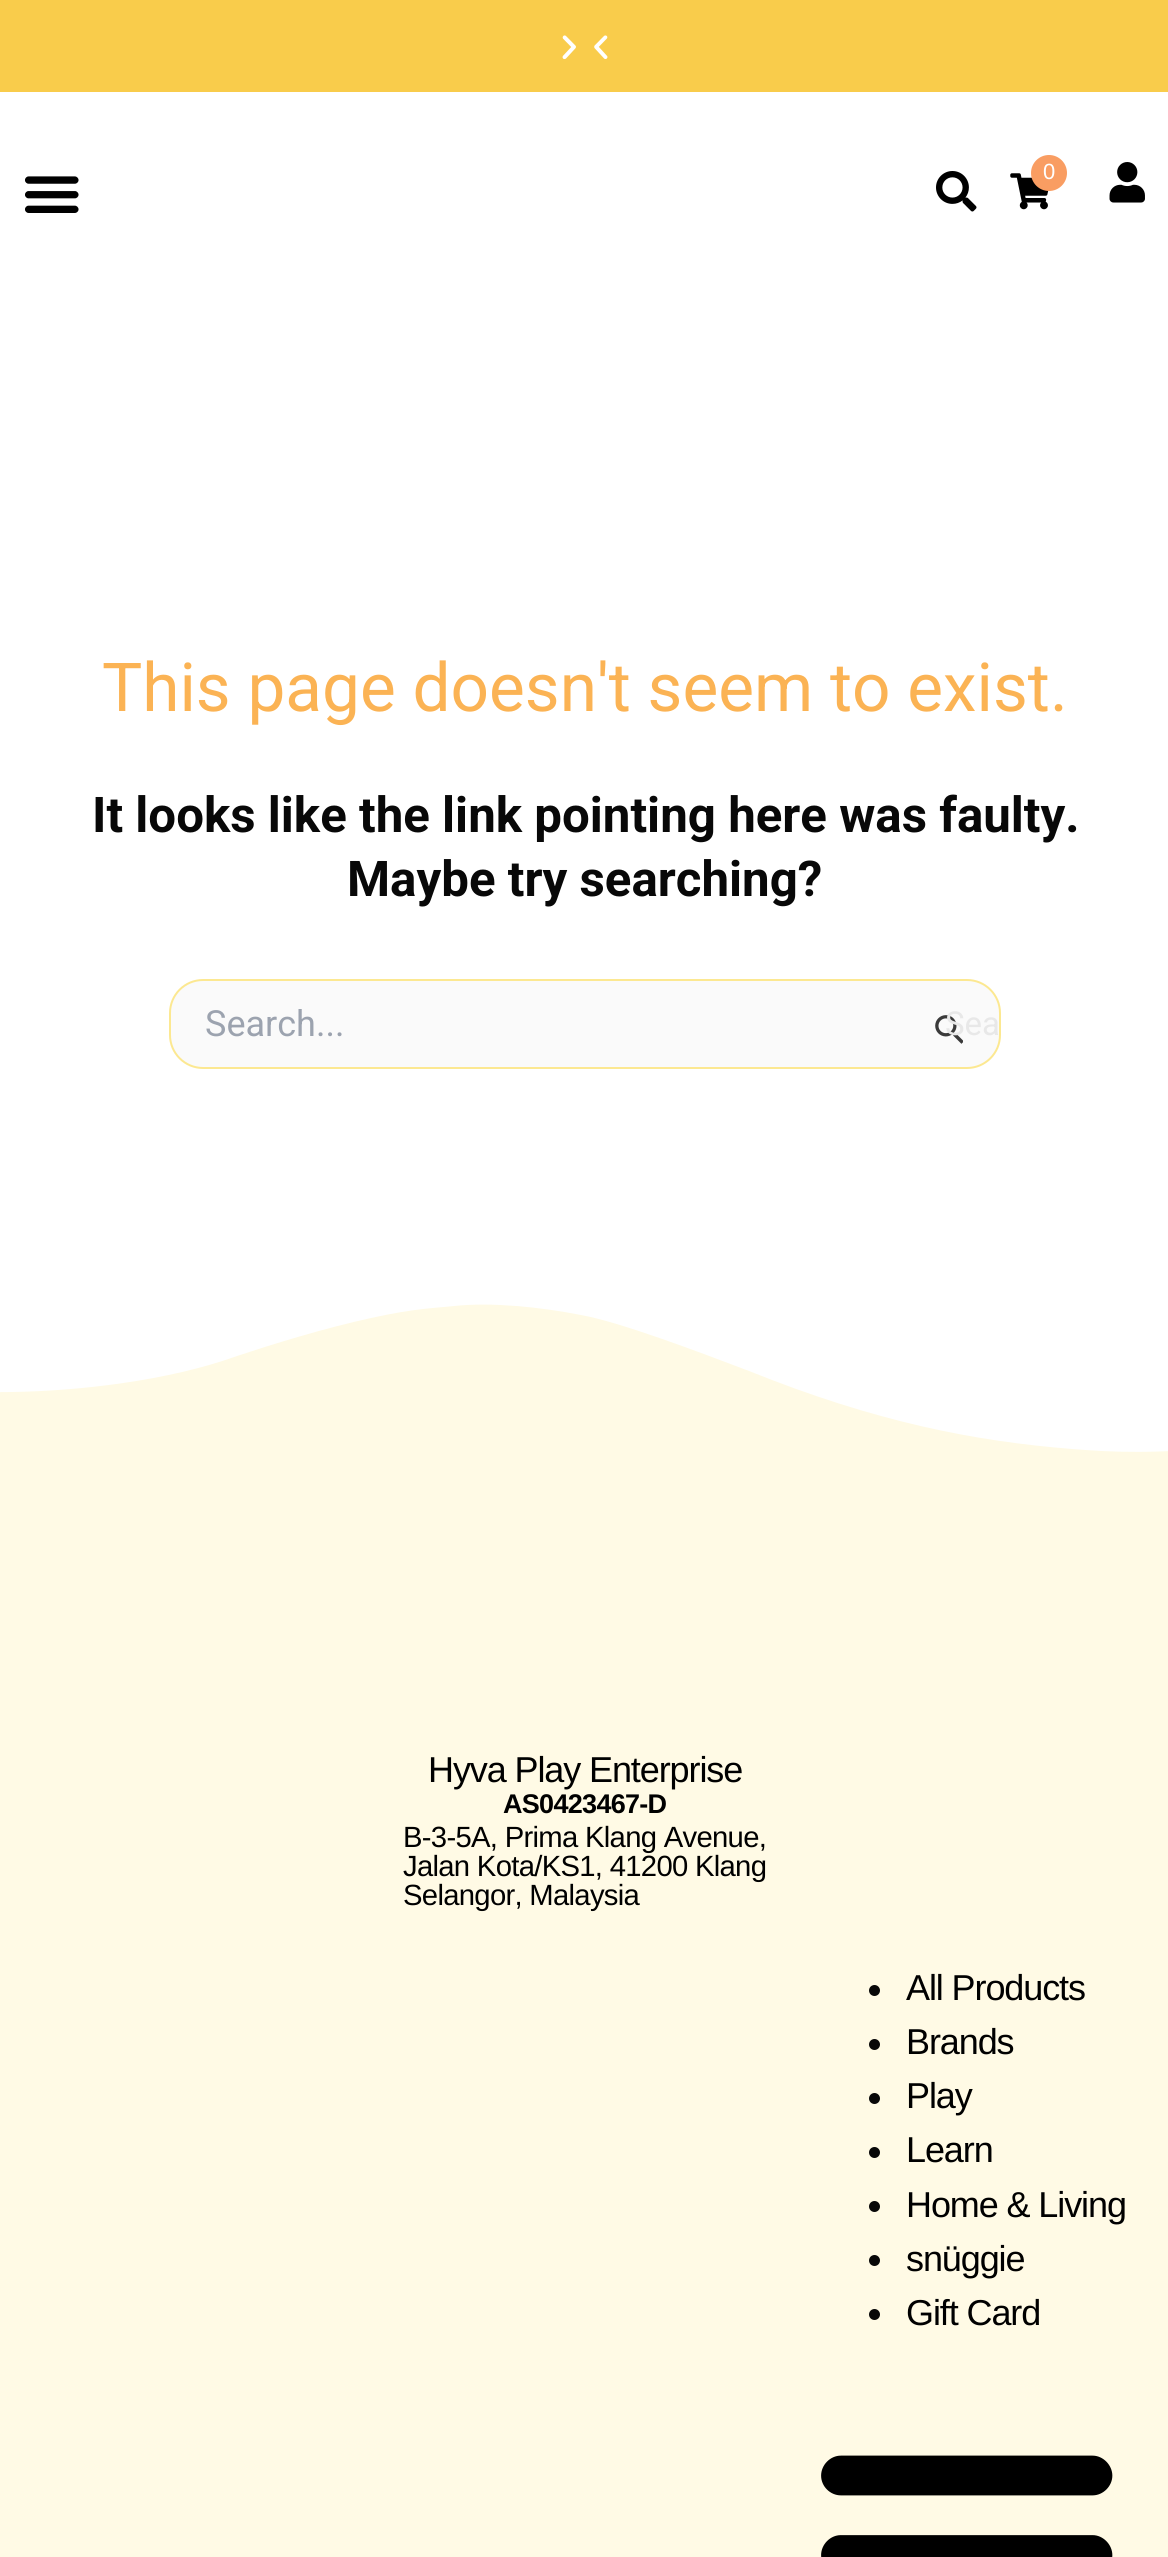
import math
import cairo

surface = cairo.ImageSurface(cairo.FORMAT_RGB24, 1168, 2557)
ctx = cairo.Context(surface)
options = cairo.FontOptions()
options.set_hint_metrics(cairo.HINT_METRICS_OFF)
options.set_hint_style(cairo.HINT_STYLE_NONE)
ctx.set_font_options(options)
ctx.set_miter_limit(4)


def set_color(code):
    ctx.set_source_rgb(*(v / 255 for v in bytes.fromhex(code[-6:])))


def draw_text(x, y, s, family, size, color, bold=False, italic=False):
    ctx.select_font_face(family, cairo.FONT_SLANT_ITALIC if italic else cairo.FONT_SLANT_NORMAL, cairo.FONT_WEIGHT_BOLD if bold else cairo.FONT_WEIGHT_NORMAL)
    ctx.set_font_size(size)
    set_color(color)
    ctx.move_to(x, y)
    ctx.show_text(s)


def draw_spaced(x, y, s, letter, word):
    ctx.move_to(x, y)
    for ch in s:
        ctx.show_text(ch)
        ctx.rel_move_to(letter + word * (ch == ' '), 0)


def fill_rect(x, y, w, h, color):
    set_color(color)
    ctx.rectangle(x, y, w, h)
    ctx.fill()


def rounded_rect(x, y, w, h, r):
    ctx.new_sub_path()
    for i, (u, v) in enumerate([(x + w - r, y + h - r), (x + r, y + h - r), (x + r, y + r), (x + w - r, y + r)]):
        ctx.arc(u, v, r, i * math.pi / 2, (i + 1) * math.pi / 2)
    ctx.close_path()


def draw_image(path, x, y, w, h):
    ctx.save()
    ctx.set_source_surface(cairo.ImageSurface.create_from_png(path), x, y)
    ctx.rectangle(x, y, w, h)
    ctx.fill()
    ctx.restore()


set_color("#ffffff")
ctx.paint()
fill_rect(0, 0, 1168, 92, "#f9cc4b")
draw_image("assets/img1.png", 562, 35, 14, 25)
draw_image("assets/img2.png", 594, 35, 14, 24)
draw_image("assets/img3.png", 936, 171, 41, 41)
draw_image("assets/img4.png", 1010, 173, 39, 37)
set_color("#f99d62")
ctx.arc(1049, 173, 18, 0, 2 * math.pi)
ctx.fill()
ctx.select_font_face("Liberation Sans")
ctx.set_font_size(22)
set_color("#ffffff")
draw_spaced(1043, 179, "0", -0.7, 0)
draw_image("assets/img5.png", 1109, 162, 36, 41)
draw_image("assets/img6.png", 25, 176, 54, 37)
draw_text(102, 711, "This page doesn't seem to exist.", "Roboto", 67.5, "#fbb354")
draw_text(92, 832, "It looks like the link pointing here was faulty.", "Roboto", 49.25, "#080808", bold=True)
draw_text(347, 896, "Maybe try searching?", "Roboto", 49.25, "#080808", bold=True)
set_color("#fafafa")
rounded_rect(170, 980, 830, 88, 33)
ctx.fill_preserve()
set_color("#fce891")
ctx.stroke()
draw_text(205, 1036, "Search...", "Roboto", 36, "#9ca3af")
draw_image("assets/img7.png", 935, 1015, 28, 29)
draw_text(945, 1035, "Sea", "Roboto", 33, "#e8e8e8")
fill_rect(0, 1304, 1168, 1253, "#fffae5")
set_color("#ffffff")
ctx.new_path()
ctx.move_to(454, 1306)
ctx.curve_to(492, 1302, 540, 1307, 581, 1315)
ctx.curve_to(620, 1322, 699, 1352, 749, 1371)
ctx.curve_to(876, 1422, 973, 1441, 1072, 1449)
ctx.curve_to(1111, 1452, 1154, 1455, 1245, 1445)
ctx.curve_to(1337, 1436, 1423, 1405, 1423, 1405)
ctx.line_to(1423, 1296)
ctx.line_to(-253, 1296)
ctx.line_to(-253, 1344)
ctx.curve_to(-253, 1344, -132, 1395, 12, 1392)
ctx.curve_to(78, 1391, 168, 1381, 237, 1356)
ctx.curve_to(273, 1344, 325, 1328, 371, 1318)
ctx.curve_to(416, 1308, 437, 1308, 454, 1306)
ctx.close_path()
ctx.fill()
ctx.select_font_face("Liberation Sans")
ctx.set_font_size(36)
set_color("#000000")
draw_spaced(428, 1782, "Hyva Play Enterprise", -1.1, 0)
ctx.select_font_face("Liberation Sans", cairo.FONT_SLANT_NORMAL, cairo.FONT_WEIGHT_BOLD)
ctx.set_font_size(27)
draw_spaced(503, 1813, "AS0423467-D", -0.7, 0)
ctx.select_font_face("Liberation Sans")
ctx.set_font_size(29.25)
draw_spaced(403, 1847, "B-3-5A, Prima Klang Avenue,", -0.7, 0)
draw_spaced(403, 1876, "Jalan Kota/KS1, 41200 Klang", -0.7, 0)
draw_spaced(403, 1905, "Selangor, Malaysia", -0.7, 0)
set_color("#080808")
ctx.new_path()
ctx.arc(874.5, 1990.5, 5.5, 0, 2 * math.pi)
ctx.fill()
ctx.set_font_size(36)
set_color("#000000")
draw_spaced(906, 2000, "All Products", -1.1, 0)
set_color("#080808")
ctx.new_path()
ctx.arc(874.5, 2044.5, 5.5, 0, 2 * math.pi)
ctx.fill()
set_color("#000000")
draw_spaced(906, 2054, "Brands", -1.1, 0)
set_color("#080808")
ctx.new_path()
ctx.arc(874.5, 2098.5, 5.5, 0, 2 * math.pi)
ctx.fill()
set_color("#000000")
draw_spaced(906, 2108, "Play", -1.1, 0)
set_color("#080808")
ctx.new_path()
ctx.arc(874.5, 2152.5, 5.5, 0, 2 * math.pi)
ctx.fill()
set_color("#000000")
draw_spaced(906, 2162, "Learn", -1.1, 0)
set_color("#080808")
ctx.new_path()
ctx.arc(874.5, 2206.5, 5.5, 0, 2 * math.pi)
ctx.fill()
set_color("#000000")
draw_spaced(906, 2217, "Home & Living", -1.1, 0)
set_color("#080808")
ctx.new_path()
ctx.arc(874.5, 2260.5, 5.5, 0, 2 * math.pi)
ctx.fill()
set_color("#000000")
draw_spaced(906, 2271, "snüggie", -1.1, 0)
set_color("#080808")
ctx.new_path()
ctx.arc(874.5, 2314.5, 5.5, 0, 2 * math.pi)
ctx.fill()
set_color("#000000")
draw_spaced(906, 2325, "Gift Card", -1.1, 0)
draw_image("assets/img8.png", 821, 2455, 292, 102)
surface.write_to_png("output.png")
